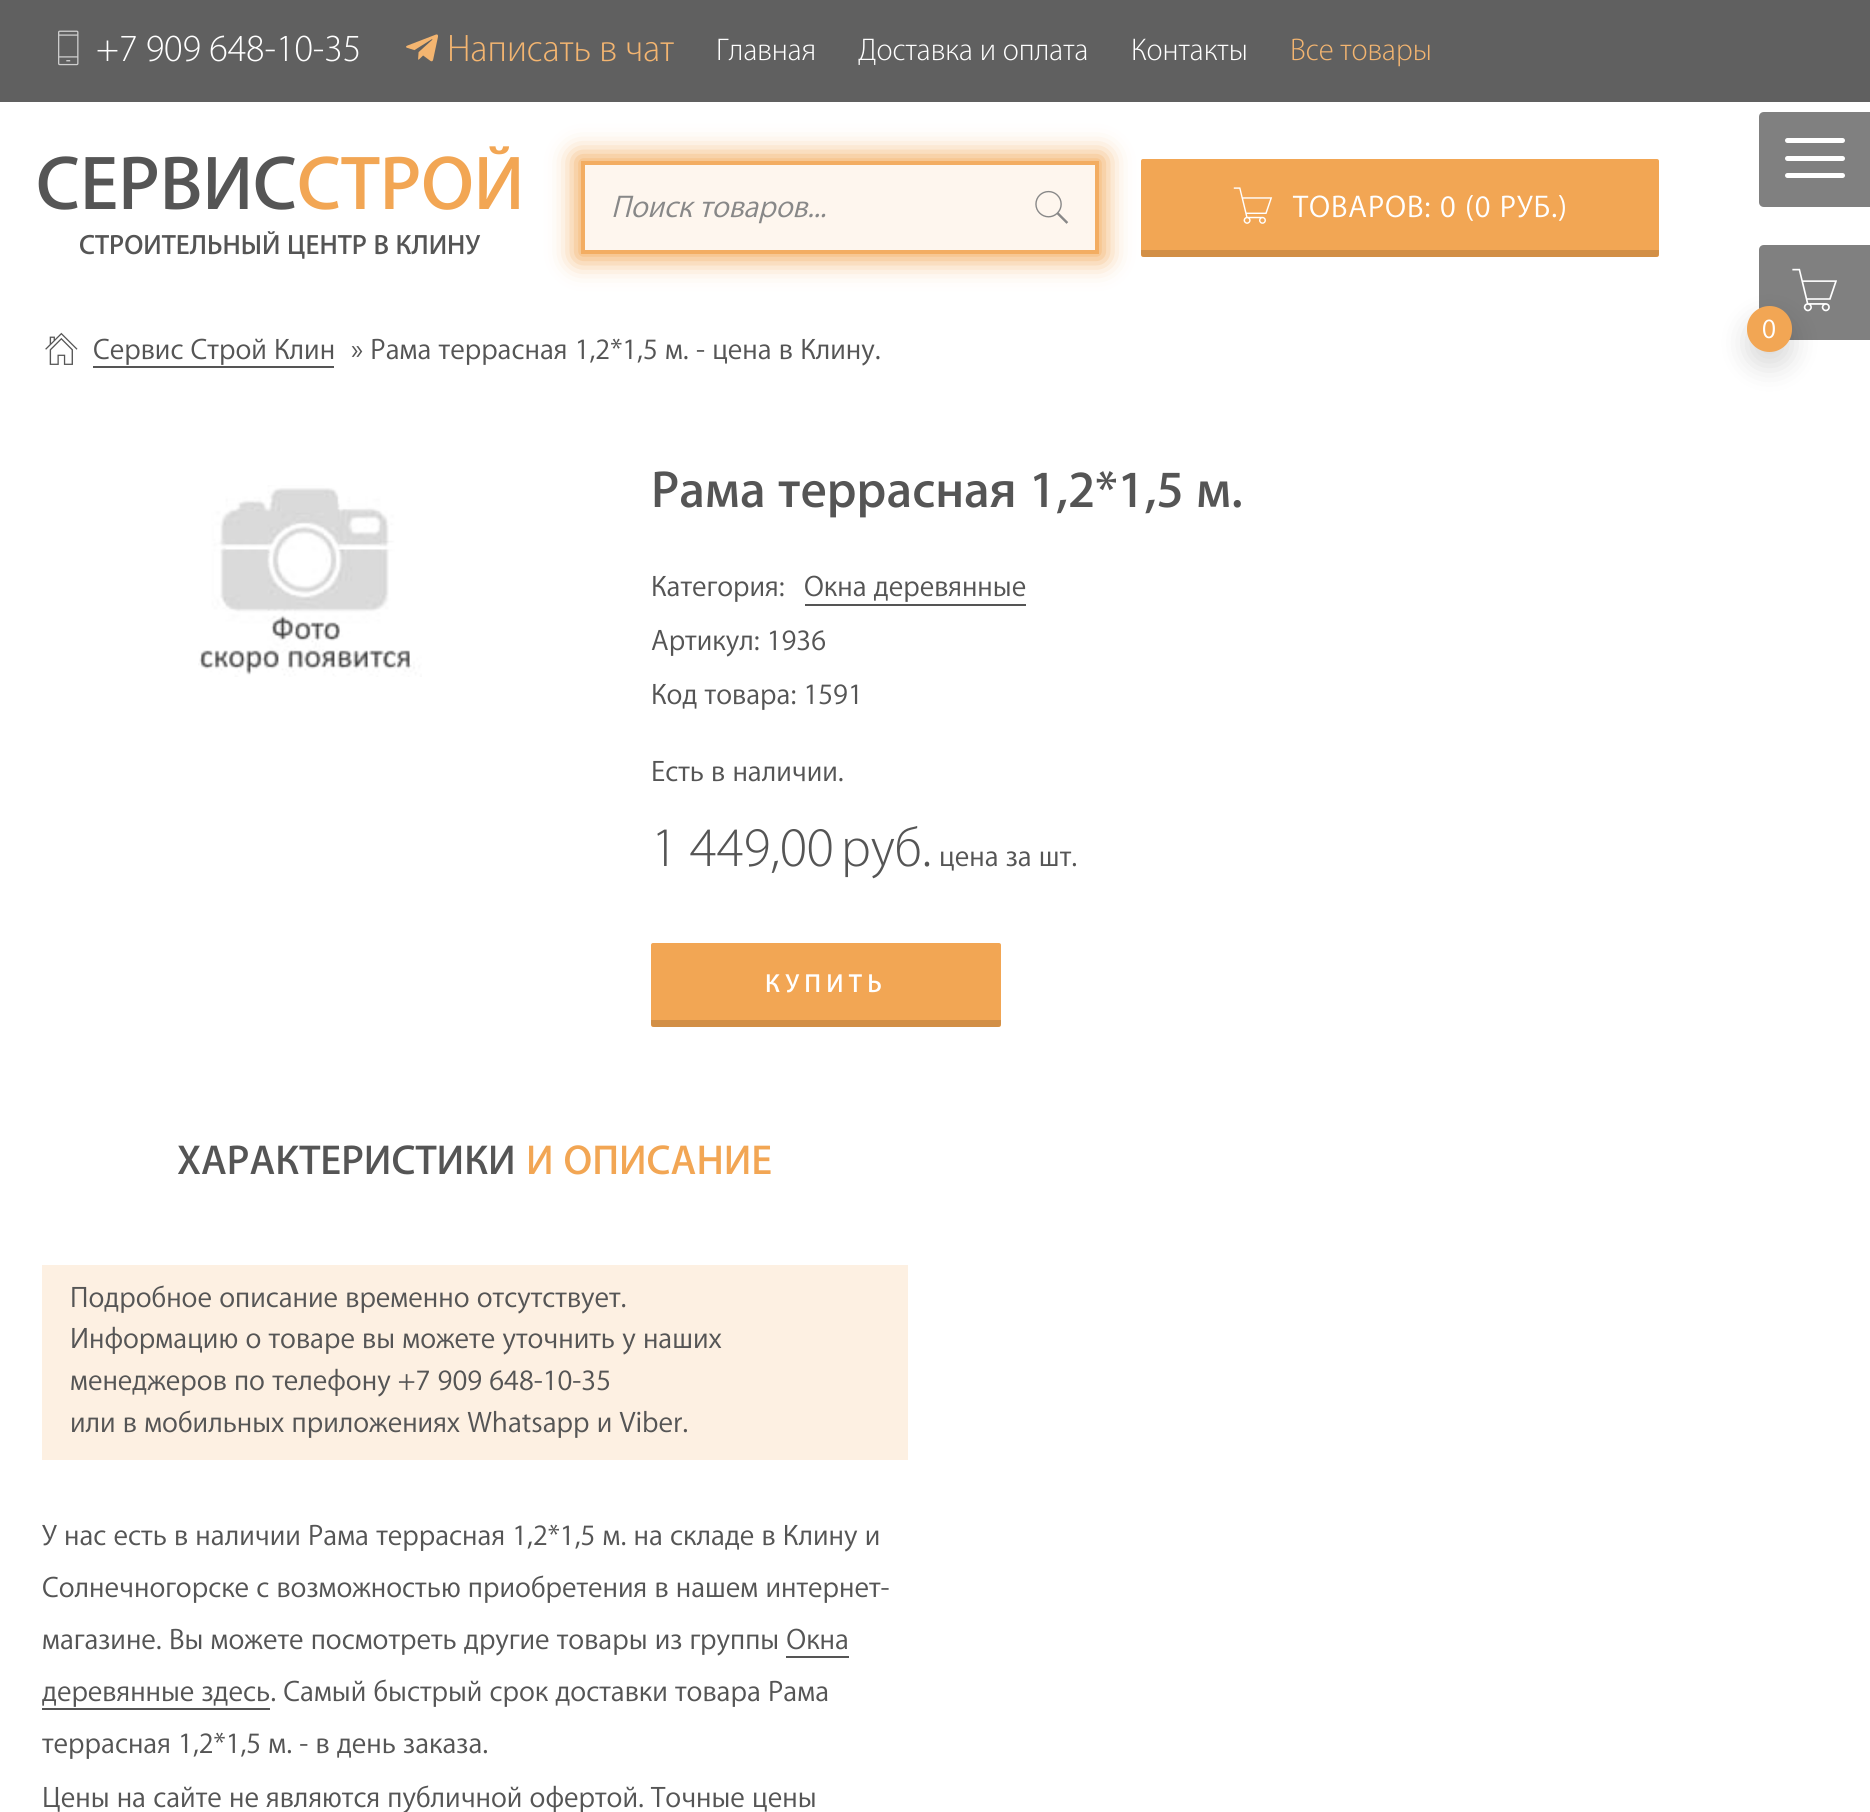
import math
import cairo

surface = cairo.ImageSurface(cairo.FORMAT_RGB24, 1870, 1812)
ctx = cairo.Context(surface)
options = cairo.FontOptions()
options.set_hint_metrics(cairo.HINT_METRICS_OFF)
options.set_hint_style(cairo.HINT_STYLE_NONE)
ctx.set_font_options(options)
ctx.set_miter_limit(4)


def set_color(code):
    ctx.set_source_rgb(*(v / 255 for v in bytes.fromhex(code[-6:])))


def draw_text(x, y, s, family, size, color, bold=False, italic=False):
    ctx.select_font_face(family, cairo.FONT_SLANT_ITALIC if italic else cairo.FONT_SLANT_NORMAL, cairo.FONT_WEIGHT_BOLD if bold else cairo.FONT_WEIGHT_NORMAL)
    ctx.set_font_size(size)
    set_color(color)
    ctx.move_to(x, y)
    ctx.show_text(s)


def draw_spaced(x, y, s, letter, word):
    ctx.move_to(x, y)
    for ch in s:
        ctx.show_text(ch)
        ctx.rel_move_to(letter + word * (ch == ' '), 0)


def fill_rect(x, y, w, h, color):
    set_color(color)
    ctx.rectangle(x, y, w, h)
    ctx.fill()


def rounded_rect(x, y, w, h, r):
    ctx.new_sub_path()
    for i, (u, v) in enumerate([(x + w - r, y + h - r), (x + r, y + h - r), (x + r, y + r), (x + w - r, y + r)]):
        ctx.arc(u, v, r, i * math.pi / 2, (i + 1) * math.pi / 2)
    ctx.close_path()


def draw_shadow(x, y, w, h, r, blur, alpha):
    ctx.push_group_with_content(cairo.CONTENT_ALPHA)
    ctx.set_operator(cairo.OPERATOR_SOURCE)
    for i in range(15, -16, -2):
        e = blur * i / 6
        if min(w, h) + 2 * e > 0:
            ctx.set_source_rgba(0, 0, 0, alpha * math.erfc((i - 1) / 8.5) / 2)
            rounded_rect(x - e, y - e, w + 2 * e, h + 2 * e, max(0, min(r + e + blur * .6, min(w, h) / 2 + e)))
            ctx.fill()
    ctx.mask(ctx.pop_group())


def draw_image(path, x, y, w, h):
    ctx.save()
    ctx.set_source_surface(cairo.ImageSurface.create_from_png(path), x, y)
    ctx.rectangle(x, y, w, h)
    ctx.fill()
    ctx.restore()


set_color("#ffffff")
ctx.paint()
fill_rect(0, 0, 1870, 102, "#606060")
draw_image("assets/img1.png", 58, 30, 21, 36)
draw_text(96, 61, "+7 909 648-10-35", "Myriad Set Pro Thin", 38.5, "#ffffff")
draw_image("assets/img2.png", 406, 34, 32, 28)
draw_text(447, 61, "Написать в чат", "Myriad Set Pro Thin", 38.5, "#f4b570")
draw_text(716, 60, "Главная", "Myriad Set Pro Thin", 31.5, "#ffffff")
draw_text(858, 60, "Доставка и оплата", "Myriad Set Pro Thin", 31.5, "#ffffff")
draw_text(1131, 60, "Контакты", "Myriad Set Pro Thin", 31.5, "#ffffff")
draw_text(1290, 60, "Все товары", "Myriad Set Pro Thin", 31.5, "#f4b570")
draw_text(36, 209, "СЕРВИС", "Myriad Set Pro SemiBold", 77, "#555555")
draw_text(297, 209, "СТРОЙ", "Myriad Set Pro SemiBold", 77, "#f2a654")
draw_text(79, 254, "СТРОИТЕЛЬНЫЙ ЦЕНТР В КЛИНУ", "Myriad Set Pro SemiBold", 28, "#555555")
ctx.save()
ctx.set_fill_rule(cairo.FILL_RULE_EVEN_ODD)
ctx.new_path()
ctx.move_to(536, 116)
ctx.line_to(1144, 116)
ctx.line_to(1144, 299)
ctx.line_to(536, 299)
ctx.close_path()
ctx.move_to(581, 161)
ctx.line_to(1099, 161)
ctx.line_to(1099, 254)
ctx.line_to(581, 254)
ctx.close_path()
ctx.clip()
set_color("#f2a654")
draw_shadow(576, 156, 528, 103, 0, 13, 1)
ctx.restore()
ctx.set_source_rgba(0.949, 0.651, 0.329, 0.1)
ctx.rectangle(581, 161, 518, 93)
ctx.fill()
ctx.rectangle(583, 163, 514, 89)
ctx.set_source_rgba(0.949, 0.651, 0.329, 0.9)
ctx.set_line_width(4)
ctx.stroke()
draw_text(611, 217, "Поиск товаров...", "Myriad Set Pro", 31.5, "#888888", italic=True)
draw_image("assets/img3.png", 1035, 190, 34, 34)
set_color("#f2a654")
rounded_rect(1141, 159, 518, 98, 2)
ctx.fill()
draw_image("assets/img4.png", 1233, 187, 40, 37)
ctx.select_font_face("Myriad Set Pro")
set_color("#ffffff")
draw_spaced(1293, 217, "ТОВАРОВ: 0 (0 РУБ.)", 0.9, 0)
set_color("#d28f46")
ctx.new_path()
ctx.move_to(1141, 250)
ctx.line_to(1659, 250)
ctx.line_to(1659, 253.5)
ctx.curve_to(1659, 255.5, 1657.5, 257, 1655.5, 257)
ctx.line_to(1144.5, 257)
ctx.curve_to(1142.5, 257, 1141, 255.5, 1141, 253.5)
ctx.close_path()
ctx.fill()
draw_image("assets/img5.png", 45, 332, 33, 33)
draw_text(93, 359, "Сервис Строй Клин", "Myriad Set Pro", 29.75, "#555555")
fill_rect(93, 366, 241, 2, "#555555")
draw_text(351, 359, "» Рама террасная 1,2*1,5 м. - цена в Клину.", "Myriad Set Pro", 29.75, "#555555")
draw_image("assets/img6.png", 198, 485, 224, 192)
draw_text(651, 507, "Рама террасная 1,2*1,5 м.", "Myriad Set Pro SemiBold", 52.5, "#555555")
draw_text(651, 596, "Категория:", "Myriad Set Pro", 29.75, "#555555")
draw_text(804, 596, "Окна деревянные", "Myriad Set Pro", 29.75, "#555555")
fill_rect(805, 604, 221, 2, "#555555")
draw_text(651, 650, "Артикул: 1936", "Myriad Set Pro", 29.75, "#555555")
draw_text(651, 704, "Код товара: 1591", "Myriad Set Pro", 29.75, "#555555")
draw_text(651, 781, "Есть в наличии.", "Myriad Set Pro", 29.75, "#555555")
draw_text(651, 866, "1 449,00", "Myriad Set Pro Thin", 56, "#555555")
draw_text(841, 866, "руб.", "Myriad Set Pro Thin", 56, "#555555")
draw_text(939, 866, "цена за шт.", "Myriad Set Pro", 29.75, "#555555")
set_color("#f2a654")
rounded_rect(651, 943, 350, 84, 2)
ctx.fill()
ctx.select_font_face("Myriad Set Pro SemiBold")
ctx.set_font_size(26.25)
set_color("#ffffff")
draw_spaced(765, 992, "КУПИТЬ", 5.25, 0)
set_color("#d28f46")
ctx.new_path()
ctx.move_to(651, 1020)
ctx.line_to(1001, 1020)
ctx.line_to(1001, 1023.5)
ctx.curve_to(1001, 1025.5, 999.5, 1027, 997.5, 1027)
ctx.line_to(654.5, 1027)
ctx.curve_to(652.5, 1027, 651, 1025.5, 651, 1023.5)
ctx.close_path()
ctx.fill()
draw_text(177, 1174, "ХАРАКТЕРИСТИКИ", "Myriad Set Pro SemiBold", 42, "#555555")
draw_text(526, 1174, "И ОПИСАНИЕ", "Myriad Set Pro SemiBold", 42, "#f2a654")
fill_rect(42, 1265, 866, 195, "#fdf0e2")
draw_text(70, 1307, "Подробное описание временно отсутствует.", "Myriad Set Pro", 29.75, "#555555")
draw_text(70, 1348, "Информацию о товаре вы можете уточнить у наших", "Myriad Set Pro", 29.75, "#555555")
draw_text(70, 1390, "менеджеров по телефону +7 909 648-10-35", "Myriad Set Pro", 29.75, "#555555")
draw_text(70, 1432, "или в мобильных приложениях Whatsapp и Viber.", "Myriad Set Pro", 29.75, "#555555")
draw_text(42, 1545, "У нас есть в наличии Рама террасная 1,2*1,5 м. на складе в Клину и", "Myriad Set Pro", 29.75, "#555555")
draw_text(42, 1597, "Солнечногорске с возможностью приобретения в нашем интернет-", "Myriad Set Pro", 29.75, "#555555")
draw_text(42, 1649, "магазине. Вы можете посмотреть другие товары из группы Окна", "Myriad Set Pro", 29.75, "#555555")
draw_text(42, 1701, "деревянные здесь. Самый быстрый срок доставки товара Рама", "Myriad Set Pro", 29.75, "#555555")
fill_rect(786, 1656, 63, 2, "#555555")
fill_rect(42, 1708, 228, 2, "#555555")
draw_text(42, 1753, "террасная 1,2*1,5 м. - в день заказа.", "Myriad Set Pro", 29.75, "#555555")
draw_text(42, 1807, "Цены на сайте не являются публичной офертой. Точные цены", "Myriad Set Pro", 29.75, "#555555")
set_color("#808080")
ctx.new_path()
ctx.move_to(1764, 112)
ctx.line_to(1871, 112)
ctx.line_to(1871, 207)
ctx.line_to(1764, 207)
ctx.curve_to(1761, 207, 1759, 205, 1759, 202)
ctx.line_to(1759, 117)
ctx.curve_to(1759, 114, 1761, 112, 1764, 112)
ctx.close_path()
ctx.fill()
set_color("#ffffff")
rounded_rect(1785, 156, 60, 5, 2.5)
ctx.fill()
rounded_rect(1785, 138, 60, 5, 2.5)
ctx.fill()
rounded_rect(1785, 173, 60, 5, 2.5)
ctx.fill()
set_color("#808080")
ctx.new_path()
ctx.move_to(1764, 245)
ctx.line_to(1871, 245)
ctx.line_to(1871, 340)
ctx.line_to(1764, 340)
ctx.curve_to(1761, 340, 1759, 338, 1759, 335)
ctx.line_to(1759, 250)
ctx.curve_to(1759, 247, 1761, 245, 1764, 245)
ctx.close_path()
ctx.fill()
draw_image("assets/img7.png", 1792, 268, 45, 44)
set_color("#000000")
draw_shadow(1747, 320, 45, 46, 22.5, 14, 0.15)
set_color("#f2a654")
rounded_rect(1747, 306, 45, 46, 22.5)
ctx.fill()
draw_text(1762, 338, "0", "Myriad Set Pro", 28, "#ffffff")
surface.write_to_png("output.png")
